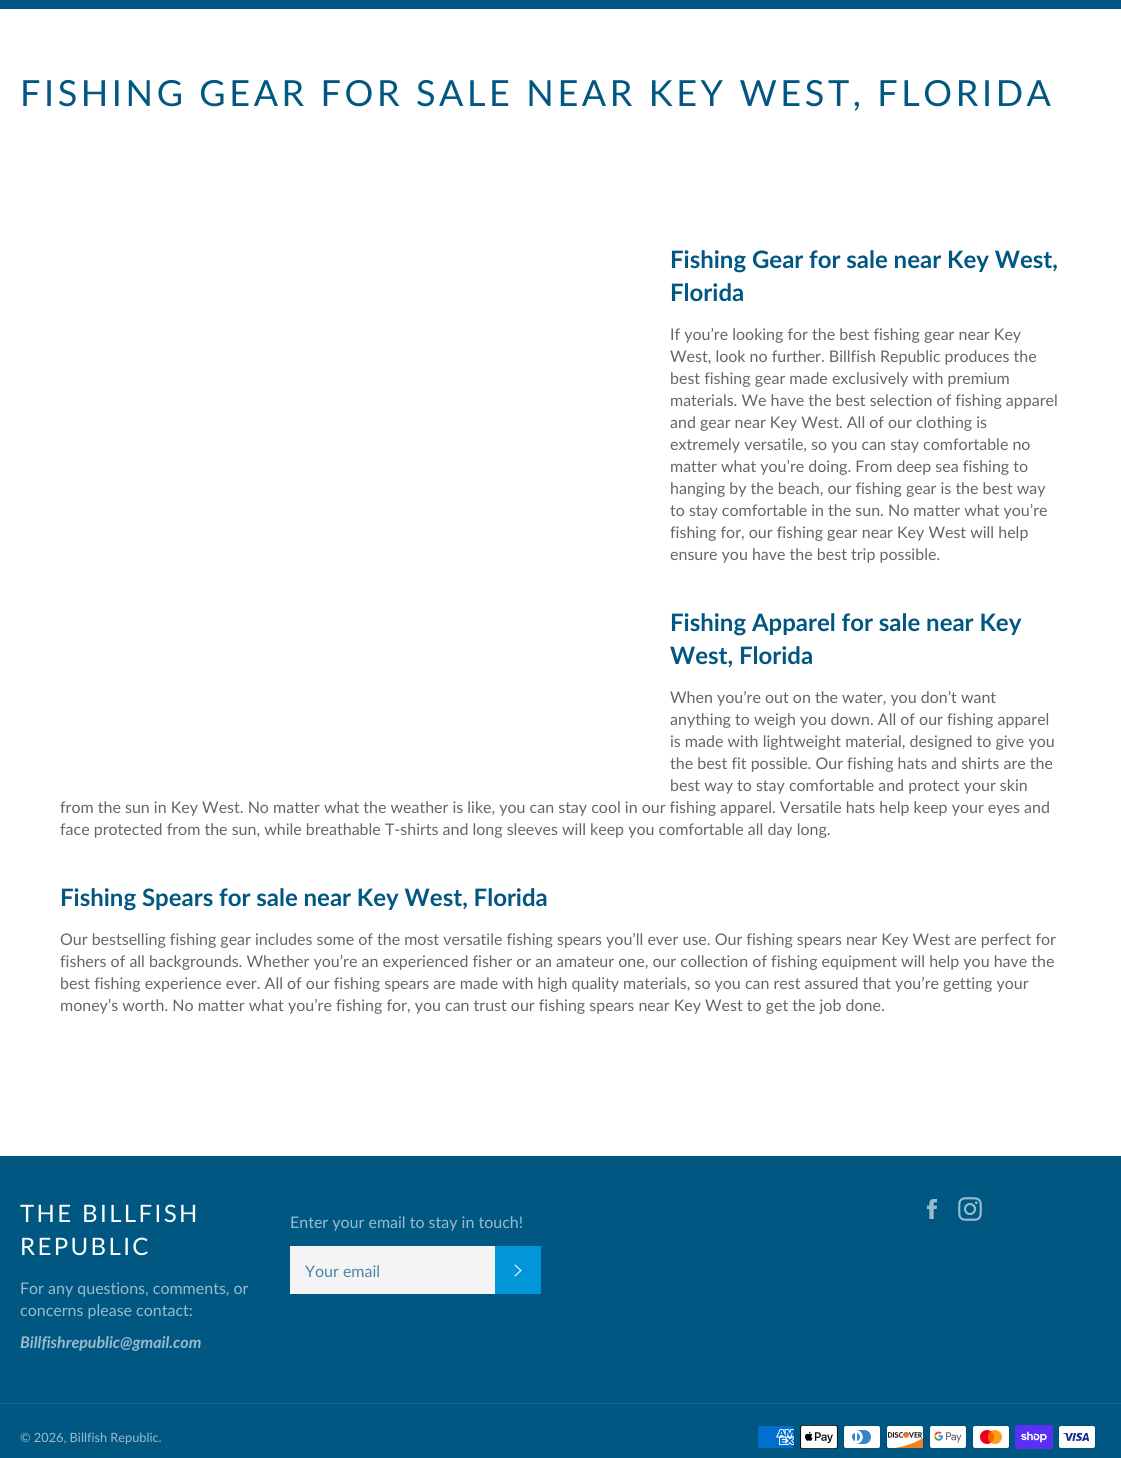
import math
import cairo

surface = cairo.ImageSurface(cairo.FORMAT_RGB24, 1121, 1458)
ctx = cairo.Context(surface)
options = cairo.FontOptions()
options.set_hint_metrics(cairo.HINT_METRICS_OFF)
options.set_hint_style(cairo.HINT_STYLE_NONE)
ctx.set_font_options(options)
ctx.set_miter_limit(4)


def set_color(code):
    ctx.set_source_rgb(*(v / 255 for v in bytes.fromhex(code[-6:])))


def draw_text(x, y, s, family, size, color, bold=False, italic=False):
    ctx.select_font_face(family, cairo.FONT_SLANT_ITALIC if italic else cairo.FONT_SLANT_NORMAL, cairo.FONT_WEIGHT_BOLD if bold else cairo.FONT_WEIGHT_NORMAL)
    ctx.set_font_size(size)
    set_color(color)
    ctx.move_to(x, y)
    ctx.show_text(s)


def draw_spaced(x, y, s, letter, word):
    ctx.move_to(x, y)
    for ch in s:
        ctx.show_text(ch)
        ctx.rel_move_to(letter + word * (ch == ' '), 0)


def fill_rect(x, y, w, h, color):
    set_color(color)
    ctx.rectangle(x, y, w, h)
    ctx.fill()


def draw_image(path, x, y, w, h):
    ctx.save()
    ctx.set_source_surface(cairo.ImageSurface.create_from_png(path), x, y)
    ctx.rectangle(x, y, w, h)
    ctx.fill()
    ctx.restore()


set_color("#ffffff")
ctx.paint()
fill_rect(0, 0, 1121, 9, "#005782")
ctx.select_font_face("Lato")
ctx.set_font_size(36)
draw_spaced(20, 106, "FISHING GEAR FOR SALE NEAR KEY WEST, FLORIDA", 3.6, 0)
draw_text(670, 268, "Fishing Gear for sale near Key West,", "Lato", 24, "#005782", bold=True)
draw_text(670, 301, "Florida", "Lato", 24, "#005782", bold=True)
draw_text(670, 340, "If you’re looking for the best fishing gear near Key", "Lato", 16, "#666666")
draw_text(670, 362, "West, look no further. Billfish Republic produces the", "Lato", 16, "#666666")
draw_text(670, 384, "best fishing gear made exclusively with premium", "Lato", 16, "#666666")
draw_text(670, 406, "materials. We have the best selection of fishing apparel", "Lato", 16, "#666666")
draw_text(670, 428, "and gear near Key West. All of our clothing is", "Lato", 16, "#666666")
draw_text(670, 450, "extremely versatile, so you can stay comfortable no", "Lato", 16, "#666666")
draw_text(670, 472, "matter what you’re doing. From deep sea fishing to", "Lato", 16, "#666666")
draw_text(670, 494, "hanging by the beach, our fishing gear is the best way", "Lato", 16, "#666666")
draw_text(670, 516, "to stay comfortable in the sun. No matter what you’re", "Lato", 16, "#666666")
draw_text(670, 538, "fishing for, our fishing gear near Key West will help", "Lato", 16, "#666666")
draw_text(670, 560, "ensure you have the best trip possible.", "Lato", 16, "#666666")
draw_text(670, 631, "Fishing Apparel for sale near Key", "Lato", 24, "#005782", bold=True)
draw_text(670, 664, "West, Florida", "Lato", 24, "#005782", bold=True)
draw_text(670, 703, "When you’re out on the water, you don’t want", "Lato", 16, "#666666")
draw_text(670, 725, "anything to weigh you down. All of our fishing apparel", "Lato", 16, "#666666")
draw_text(670, 747, "is made with lightweight material, designed to give you", "Lato", 16, "#666666")
draw_text(670, 769, "the best fit possible. Our fishing hats and shirts are the", "Lato", 16, "#666666")
draw_text(670, 791, "best way to stay comfortable and protect your skin", "Lato", 16, "#666666")
draw_text(60, 813, "from the sun in Key West. No matter what the weather is like, you can stay cool in our fishing apparel. Versatile hats help keep your eyes and", "Lato", 16, "#666666")
draw_text(60, 835, "face protected from the sun, while breathable T-shirts and long sleeves will keep you comfortable all day long.", "Lato", 16, "#666666")
draw_text(60, 906, "Fishing Spears for sale near Key West, Florida", "Lato", 24, "#005782", bold=True)
draw_text(60, 945, "Our bestselling fishing gear includes some of the most versatile fishing spears you’ll ever use. Our fishing spears near Key West are perfect for", "Lato", 16, "#666666")
draw_text(60, 967, "fishers of all backgrounds. Whether you’re an experienced fisher or an amateur one, our collection of fishing equipment will help you have the", "Lato", 16, "#666666")
draw_text(60, 989, "best fishing experience ever. All of our fishing spears are made with high quality materials, so you can rest assured that you’re getting your", "Lato", 16, "#666666")
draw_text(60, 1011, "money’s worth. No matter what you’re fishing for, you can trust our fishing spears near Key West to get the job done.", "Lato", 16, "#666666")
fill_rect(0, 1156, 1121, 302, "#005782")
ctx.set_font_size(24)
set_color("#ffffff")
draw_spaced(20, 1222, "THE BILLFISH", 2.4, 0)
draw_spaced(20, 1255, "REPUBLIC", 2.4, 0)
draw_text(20, 1294, "For any questions, comments, or", "Lato", 16, "#99bccd")
draw_text(20, 1316, "concerns please contact:", "Lato", 16, "#99bccd")
draw_text(20, 1348, "Billfishrepublic@gmail.com", "Lato", 16, "#99bccd", bold=True, italic=True)
draw_text(290, 1228, "Enter your email to stay in touch!", "Lato", 16, "#99bccd")
fill_rect(290, 1246, 205, 48, "#f4f4f4")
draw_text(305, 1277, "Your email", "Lato", 16, "#4986a4")
fill_rect(495, 1246, 46, 48, "#0196d8")
draw_image("assets/img1.png", 514, 1264, 8, 13)
draw_image("assets/img2.png", 927, 1199, 10, 20)
draw_image("assets/img3.png", 958, 1197, 24, 24)
fill_rect(0, 1403, 1121, 1, "#00689b")
draw_text(20, 1442, "© 2026, Billfish Republic.", "Lato", 12.75, "#99bccd")
draw_image("assets/img4.png", 757, 1425, 38, 24)
draw_image("assets/img5.png", 800, 1425, 38, 24)
draw_image("assets/img6.png", 843, 1425, 38, 24)
draw_image("assets/img7.png", 886, 1425, 38, 24)
draw_image("assets/img8.png", 929, 1425, 38, 24)
draw_image("assets/img9.png", 972, 1425, 38, 24)
draw_image("assets/img10.png", 1015, 1425, 38, 24)
draw_image("assets/img11.png", 1058, 1425, 38, 24)
surface.write_to_png("output.png")
